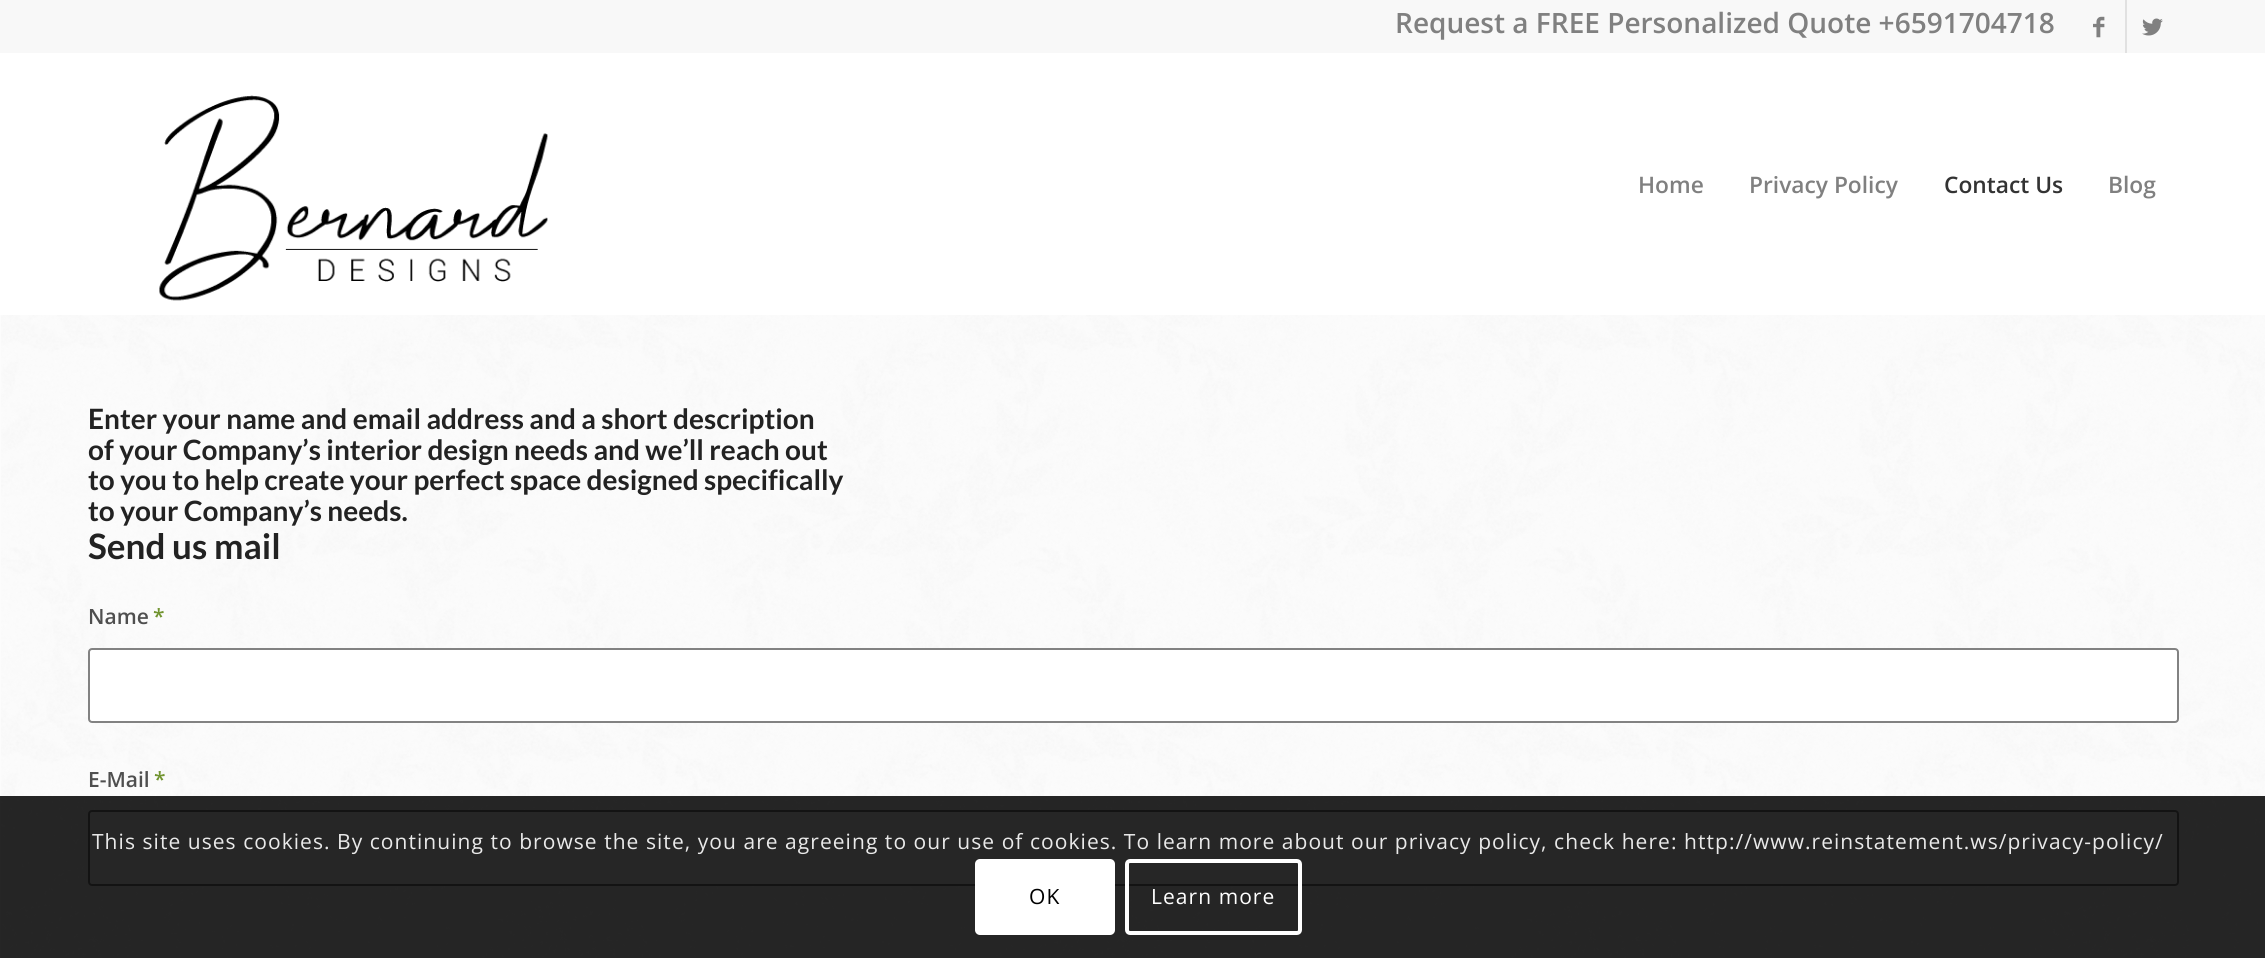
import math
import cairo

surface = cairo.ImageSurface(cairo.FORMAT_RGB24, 2265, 958)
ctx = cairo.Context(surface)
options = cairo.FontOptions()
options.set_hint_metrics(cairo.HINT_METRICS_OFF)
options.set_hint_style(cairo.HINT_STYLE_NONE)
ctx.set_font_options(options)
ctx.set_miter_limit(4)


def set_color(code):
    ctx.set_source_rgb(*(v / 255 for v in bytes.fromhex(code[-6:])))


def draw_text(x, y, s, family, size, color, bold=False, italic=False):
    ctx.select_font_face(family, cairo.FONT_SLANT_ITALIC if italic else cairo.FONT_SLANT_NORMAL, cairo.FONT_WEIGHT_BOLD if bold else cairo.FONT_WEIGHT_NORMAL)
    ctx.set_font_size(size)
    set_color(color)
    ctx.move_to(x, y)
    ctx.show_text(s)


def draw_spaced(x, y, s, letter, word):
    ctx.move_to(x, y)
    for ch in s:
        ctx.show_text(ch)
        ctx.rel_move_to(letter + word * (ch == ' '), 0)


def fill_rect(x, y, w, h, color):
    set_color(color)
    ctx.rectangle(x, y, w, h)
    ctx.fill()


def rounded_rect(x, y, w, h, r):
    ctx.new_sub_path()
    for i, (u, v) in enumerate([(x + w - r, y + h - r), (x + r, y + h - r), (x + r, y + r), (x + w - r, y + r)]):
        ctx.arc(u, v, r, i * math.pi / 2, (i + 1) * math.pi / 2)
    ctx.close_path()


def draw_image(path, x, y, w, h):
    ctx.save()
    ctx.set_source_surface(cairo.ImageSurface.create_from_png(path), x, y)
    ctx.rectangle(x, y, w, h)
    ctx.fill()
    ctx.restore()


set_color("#fcfcfc")
ctx.paint()
fill_rect(0, 0, 2265, 53, "#f8f8f8")
draw_text(1395, 33, "Request a FREE Personalized Quote +6591704718", "Open Sans SemiBold", 28, "#808080")
fill_rect(2125, 0, 2, 53, "#e1e1e1")
draw_image("assets/img1.png", 2093, 16, 12, 22)
draw_image("assets/img2.png", 2142, 18, 21, 18)
fill_rect(0, 53, 2265, 262, "#ffffff")
draw_image("assets/img3.png", 159, 95, 389, 206)
draw_text(1638, 193, "Home", "Open Sans SemiBold", 22.75, "#808080")
draw_text(1749, 193, "Privacy Policy", "Open Sans SemiBold", 22.75, "#808080")
draw_text(1944, 193, "Contact Us", "Open Sans SemiBold", 22.75, "#333333")
draw_text(2108, 193, "Blog", "Open Sans SemiBold", 22.75, "#808080")
draw_image("assets/img4.png", 1, 315, 2264, 643)
draw_text(88, 429, "Enter your name and email address and a short description", "Lato", 28, "#222222", bold=True)
draw_text(88, 460, "of your Company’s interior design needs and we’ll reach out", "Lato", 28, "#222222", bold=True)
draw_text(88, 490, "to you to help create your perfect space designed specifically", "Lato", 28, "#222222", bold=True)
draw_text(88, 521, "to your Company’s needs.", "Lato", 28, "#222222", bold=True)
draw_text(88, 559, "Send us mail", "Lato", 35, "#222222", bold=True)
draw_text(88, 624, "Name", "Open Sans SemiBold", 21, "#4f4f4f")
draw_text(153, 624, "*", "Open Sans SemiBold", 21, "#719430")
set_color("#ffffff")
rounded_rect(89, 649, 2089, 73, 3)
ctx.fill_preserve()
set_color("#828282")
ctx.stroke()
draw_text(88, 787, "E-Mail", "Open Sans SemiBold", 21, "#4f4f4f")
draw_text(154, 787, "*", "Open Sans SemiBold", 21, "#719430")
set_color("#ffffff")
rounded_rect(89, 811, 2089, 74, 3)
ctx.fill_preserve()
set_color("#828282")
ctx.stroke()
ctx.set_source_rgba(0, 0, 0, 0.85)
ctx.rectangle(0, 796, 2265, 162)
ctx.fill()
ctx.select_font_face("Open Sans")
set_color("#e9e9e9")
draw_spaced(92, 849, "This site uses cookies. By continuing to browse the site, you are agreeing to our use of cookies. To learn more about our privacy policy, check here: http://www.reinstatement.ws/privacy-policy/", 1.05, 0)
set_color("#ffffff")
rounded_rect(975, 859, 140, 76, 5)
ctx.fill()
set_color("#000000")
draw_spaced(1029, 904, "OK", 1.05, 0)
rounded_rect(1127, 861, 173, 72, 3)
set_color("#ffffff")
ctx.set_line_width(4)
ctx.stroke()
draw_spaced(1151, 904, "Learn more", 1.05, 0)
surface.write_to_png("output.png")
